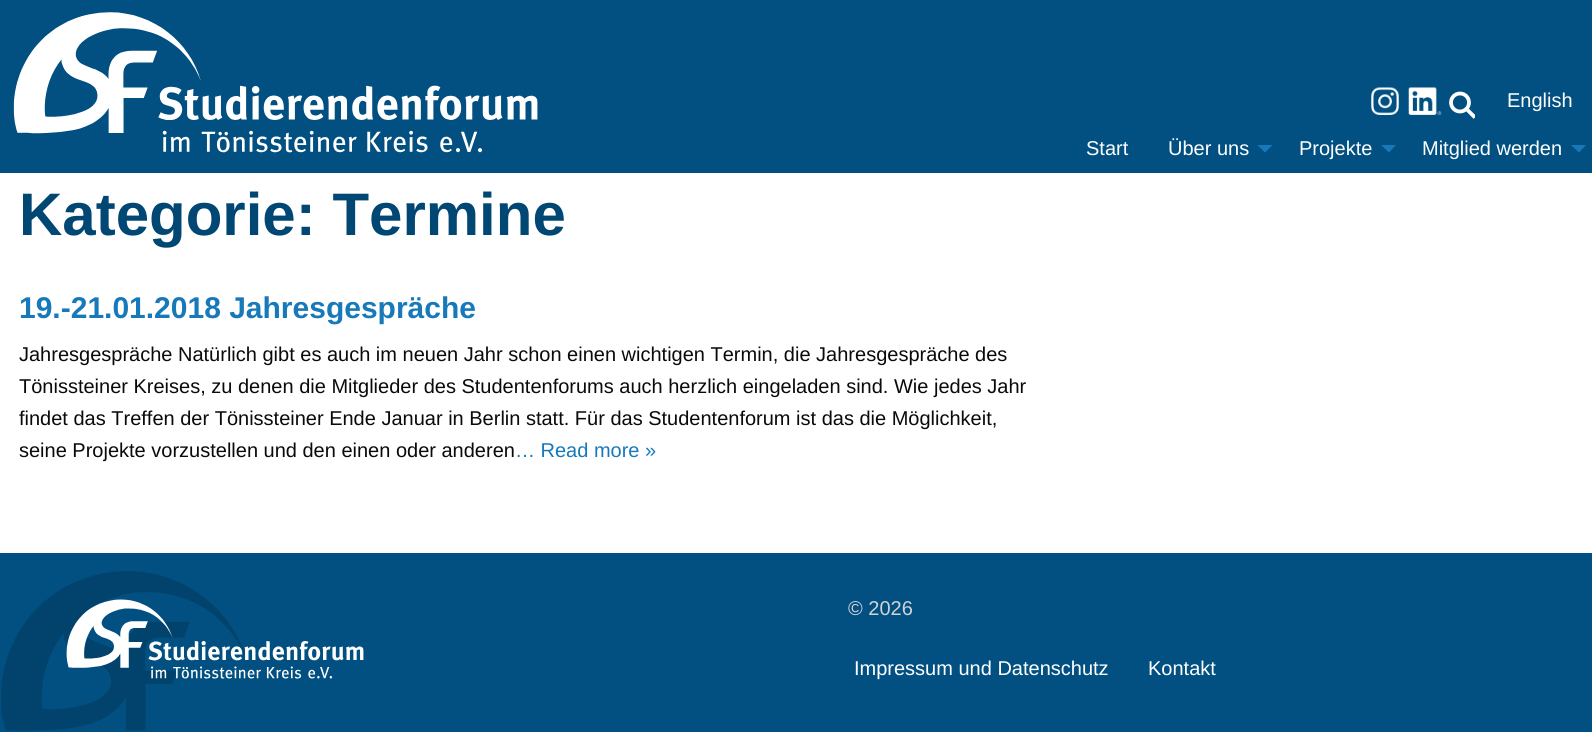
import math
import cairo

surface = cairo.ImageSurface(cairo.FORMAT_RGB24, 1592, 732)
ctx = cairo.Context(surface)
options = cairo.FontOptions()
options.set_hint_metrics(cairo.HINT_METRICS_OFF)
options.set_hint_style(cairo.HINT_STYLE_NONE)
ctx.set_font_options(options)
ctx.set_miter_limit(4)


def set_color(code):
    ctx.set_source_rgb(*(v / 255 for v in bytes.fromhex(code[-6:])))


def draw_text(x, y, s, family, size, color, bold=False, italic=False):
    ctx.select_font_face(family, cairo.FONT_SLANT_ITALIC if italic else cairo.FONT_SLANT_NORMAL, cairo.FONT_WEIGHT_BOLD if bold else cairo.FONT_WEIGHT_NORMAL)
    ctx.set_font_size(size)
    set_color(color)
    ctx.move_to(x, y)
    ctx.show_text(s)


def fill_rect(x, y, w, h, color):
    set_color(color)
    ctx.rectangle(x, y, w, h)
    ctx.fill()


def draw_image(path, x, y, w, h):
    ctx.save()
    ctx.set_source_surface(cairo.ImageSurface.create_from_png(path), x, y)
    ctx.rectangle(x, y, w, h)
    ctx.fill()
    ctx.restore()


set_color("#ffffff")
ctx.paint()
fill_rect(0, 0, 1592, 173, "#015081")
draw_image("assets/img1.png", 13, 12, 525, 141)
draw_image("assets/img2.png", 1371, 87, 28, 28)
draw_image("assets/img3.png", 1408, 87, 34, 28)
ctx.save()
ctx.rectangle(1449, 91, 26, 28)
ctx.clip()
ctx.new_path()
ctx.move_to(1475, 117.5)
ctx.line_to(1467.5, 110)
set_color("#ffffff")
ctx.set_line_width(3.8)
ctx.stroke()
ctx.restore()
ctx.arc(1460, 102.5, 9, 0, 2 * math.pi)
set_color("#ffffff")
ctx.set_line_width(3.8)
ctx.stroke()
draw_text(1507, 107, "English", "Liberation Sans", 20, "#ffffff")
draw_text(1086, 155, "Start", "Liberation Sans", 20, "#ffffff")
draw_text(1168, 155, "Über uns", "Liberation Sans", 20, "#ffffff")
set_color("#1779ba")
ctx.new_path()
ctx.move_to(1257.5, 145)
ctx.line_to(1272.5, 145)
ctx.line_to(1265, 152.5)
ctx.close_path()
ctx.fill()
draw_text(1299, 155, "Projekte", "Liberation Sans", 20, "#ffffff")
set_color("#1779ba")
ctx.new_path()
ctx.move_to(1381, 145)
ctx.line_to(1396, 145)
ctx.line_to(1389, 152.5)
ctx.close_path()
ctx.fill()
draw_text(1422, 155, "Mitglied werden", "Liberation Sans", 20, "#ffffff")
set_color("#1779ba")
ctx.new_path()
ctx.move_to(1571, 145)
ctx.line_to(1586, 145)
ctx.line_to(1579, 152.5)
ctx.close_path()
ctx.fill()
draw_text(19, 235, "Kategorie: Termine", "Liberation Sans", 60, "#004773", bold=True)
draw_text(19, 318, "19.-21.01.2018 Jahresgespräche", "Liberation Sans", 30, "#1779ba", bold=True)
draw_text(19, 361, "Jahresgespräche Natürlich gibt es auch im neuen Jahr schon einen wichtigen Termin, die Jahresgespräche des", "Liberation Sans", 20, "#0a0a0a")
draw_text(19, 393, "Tönissteiner Kreises, zu denen die Mitglieder des Studentenforums auch herzlich eingeladen sind. Wie jedes Jahr", "Liberation Sans", 20, "#0a0a0a")
draw_text(19, 425, "findet das Treffen der Tönissteiner Ende Januar in Berlin statt. Für das Studentenforum ist das die Möglichkeit,", "Liberation Sans", 20, "#0a0a0a")
draw_text(19, 457, "seine Projekte vorzustellen und den einen oder anderen", "Liberation Sans", 20, "#0a0a0a")
draw_text(515, 457, "… Read more »", "Liberation Sans", 20, "#1779ba")
fill_rect(0, 553, 1592, 179, "#015081")
draw_image("assets/img4.png", 1, 571, 245, 160)
draw_image("assets/img5.png", 66, 599, 298, 80)
draw_text(848, 615, "© 2026", "Liberation Sans", 20, "#d3d3d3")
draw_text(854, 675, "Impressum und Datenschutz", "Liberation Sans", 20, "#ffffff")
draw_text(1148, 675, "Kontakt", "Liberation Sans", 20, "#ffffff")
surface.write_to_png("output.png")
